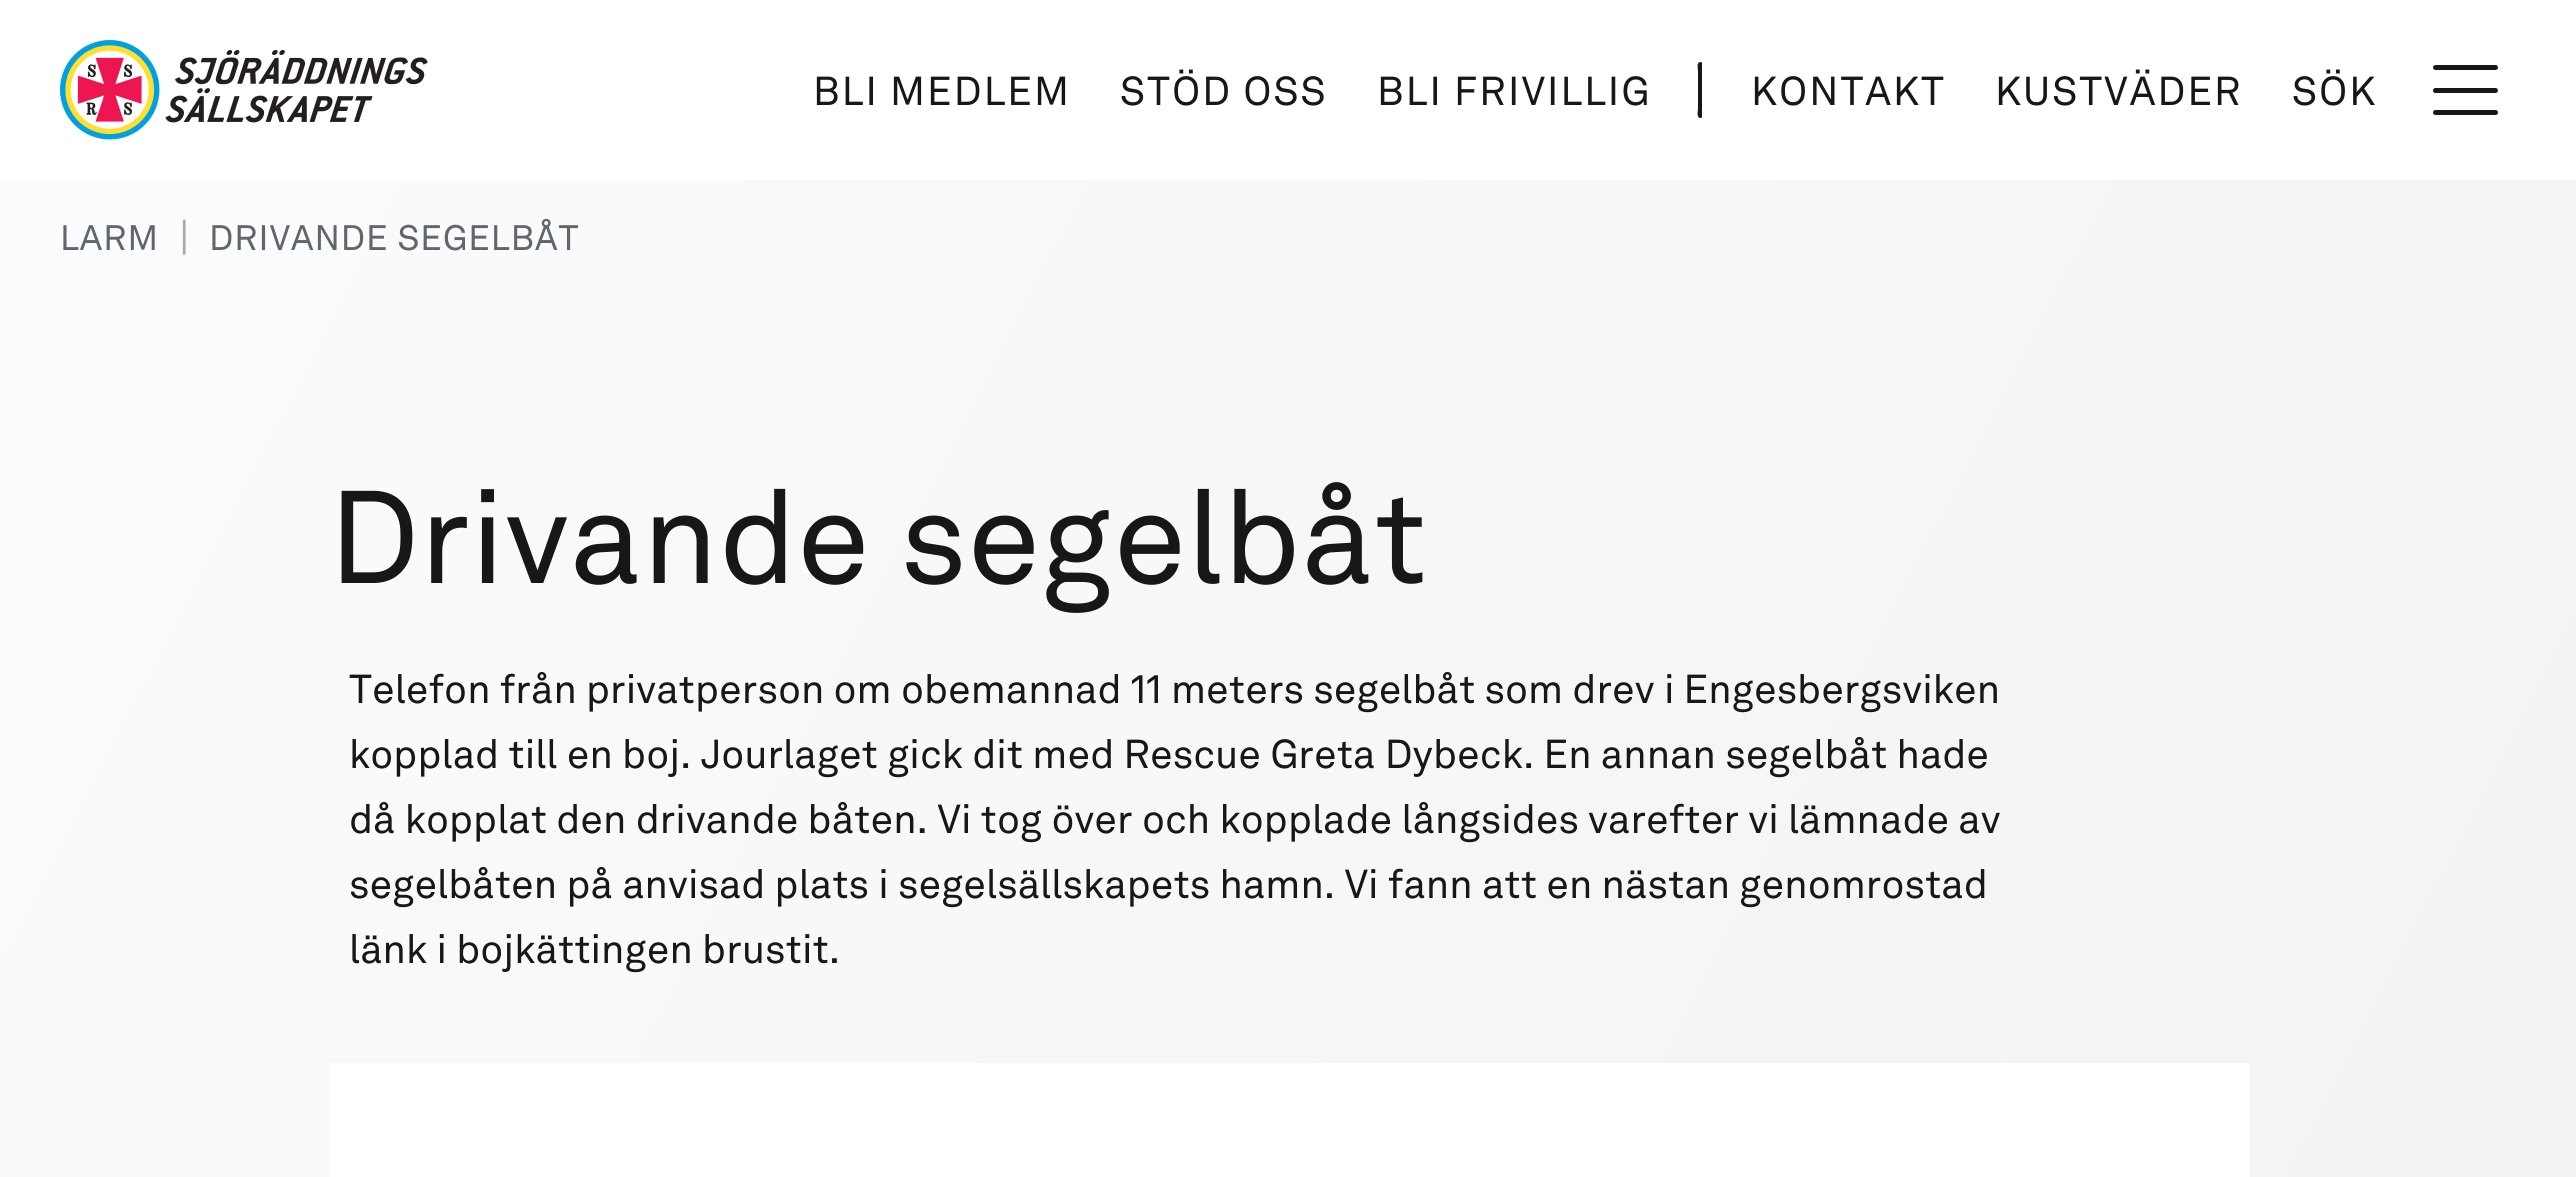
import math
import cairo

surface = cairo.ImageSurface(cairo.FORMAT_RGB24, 2576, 1177)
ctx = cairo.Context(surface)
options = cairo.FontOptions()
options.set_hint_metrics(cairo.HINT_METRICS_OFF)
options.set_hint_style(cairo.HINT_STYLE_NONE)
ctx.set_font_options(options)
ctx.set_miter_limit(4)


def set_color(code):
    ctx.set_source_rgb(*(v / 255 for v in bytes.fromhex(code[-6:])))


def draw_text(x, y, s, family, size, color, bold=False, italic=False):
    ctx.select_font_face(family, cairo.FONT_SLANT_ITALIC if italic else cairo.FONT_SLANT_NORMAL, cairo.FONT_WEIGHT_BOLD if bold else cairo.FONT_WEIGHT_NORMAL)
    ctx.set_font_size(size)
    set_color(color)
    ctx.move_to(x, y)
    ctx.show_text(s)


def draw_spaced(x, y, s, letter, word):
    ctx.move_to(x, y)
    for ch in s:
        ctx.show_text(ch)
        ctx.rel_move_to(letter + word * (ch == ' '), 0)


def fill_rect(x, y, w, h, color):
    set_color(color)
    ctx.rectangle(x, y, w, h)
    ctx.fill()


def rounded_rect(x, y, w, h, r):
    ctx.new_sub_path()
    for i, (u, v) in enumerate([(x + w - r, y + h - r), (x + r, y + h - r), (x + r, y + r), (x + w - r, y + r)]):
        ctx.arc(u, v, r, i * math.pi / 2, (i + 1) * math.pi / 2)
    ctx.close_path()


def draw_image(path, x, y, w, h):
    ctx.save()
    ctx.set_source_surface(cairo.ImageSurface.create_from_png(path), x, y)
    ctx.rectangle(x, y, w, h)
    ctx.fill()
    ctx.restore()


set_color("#ffffff")
ctx.paint()
gradient = cairo.LinearGradient(-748, 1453, 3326, 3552)
gradient.add_color_stop_rgba(0, 0.984, 0.988, 0.992, 1)
gradient.add_color_stop_rgba(1, 0.922, 0.929, 0.933, 1)
ctx.set_source(gradient)
ctx.rectangle(0, 180, 2576, 997)
ctx.fill()
draw_image("assets/img1.png", 60, 40, 368, 100)
ctx.select_font_face("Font")
ctx.set_font_size(40)
set_color("#171717")
draw_spaced(813, 105, "BLI MEDLEM", 2, 0)
draw_spaced(1120, 105, "STÖD OSS", 2, 0)
draw_spaced(1377, 105, "BLI FRIVILLIG", 2, 0)
ctx.set_fill_rule(cairo.FILL_RULE_EVEN_ODD)
ctx.new_path()
ctx.move_to(1701, 62)
ctx.curve_to(1701, 62, 1702, 62, 1702, 63)
ctx.line_to(1702, 117)
ctx.curve_to(1702, 118, 1701, 118, 1701, 118)
ctx.curve_to(1696, 118, 1698, 112, 1698, 108)
ctx.line_to(1698, 72)
ctx.curve_to(1698, 67, 1696, 62, 1701, 62)
ctx.close_path()
ctx.fill()
draw_spaced(1751, 105, "KONTAKT", 2, 0)
draw_spaced(1995, 105, "KUSTVÄDER", 2, 0)
draw_spaced(2292, 105, "SÖK", 2, 0)
rounded_rect(2433, 88, 65, 5, 2.5)
ctx.fill()
rounded_rect(2433, 65, 65, 5, 2.5)
ctx.fill()
rounded_rect(2433, 110, 65, 5, 2.5)
ctx.fill()
ctx.set_font_size(35)
set_color("#62656a")
draw_spaced(60, 250, "LARM", 0.9, 0)
draw_text(179, 250, "|", "Font", 40, "#a8aaae")
ctx.set_font_size(35)
set_color("#62656a")
draw_spaced(209, 250, "DRIVANDE SEGELBÅT", 0.9, 0)
draw_text(329, 583, "Drivande segelbåt", "Font", 130, "#171717")
draw_text(349, 703, "Telefon från privatperson om obemannad 11 meters segelbåt som drev i Engesbergsviken", "Font", 40, "#171717")
draw_text(349, 768, "kopplad till en boj. Jourlaget gick dit med Rescue Greta Dybeck. En annan segelbåt hade", "Font", 40, "#171717")
draw_text(349, 833, "då kopplat den drivande båten. Vi tog över och kopplade långsides varefter vi lämnade av", "Font", 40, "#171717")
draw_text(349, 898, "segelbåten på anvisad plats i segelsällskapets hamn. Vi fann att en nästan genomrostad", "Font", 40, "#171717")
draw_text(349, 963, "länk i bojkättingen brustit.", "Font", 40, "#171717")
fill_rect(330, 1063, 1920, 114, "#ffffff")
surface.write_to_png("output.png")
